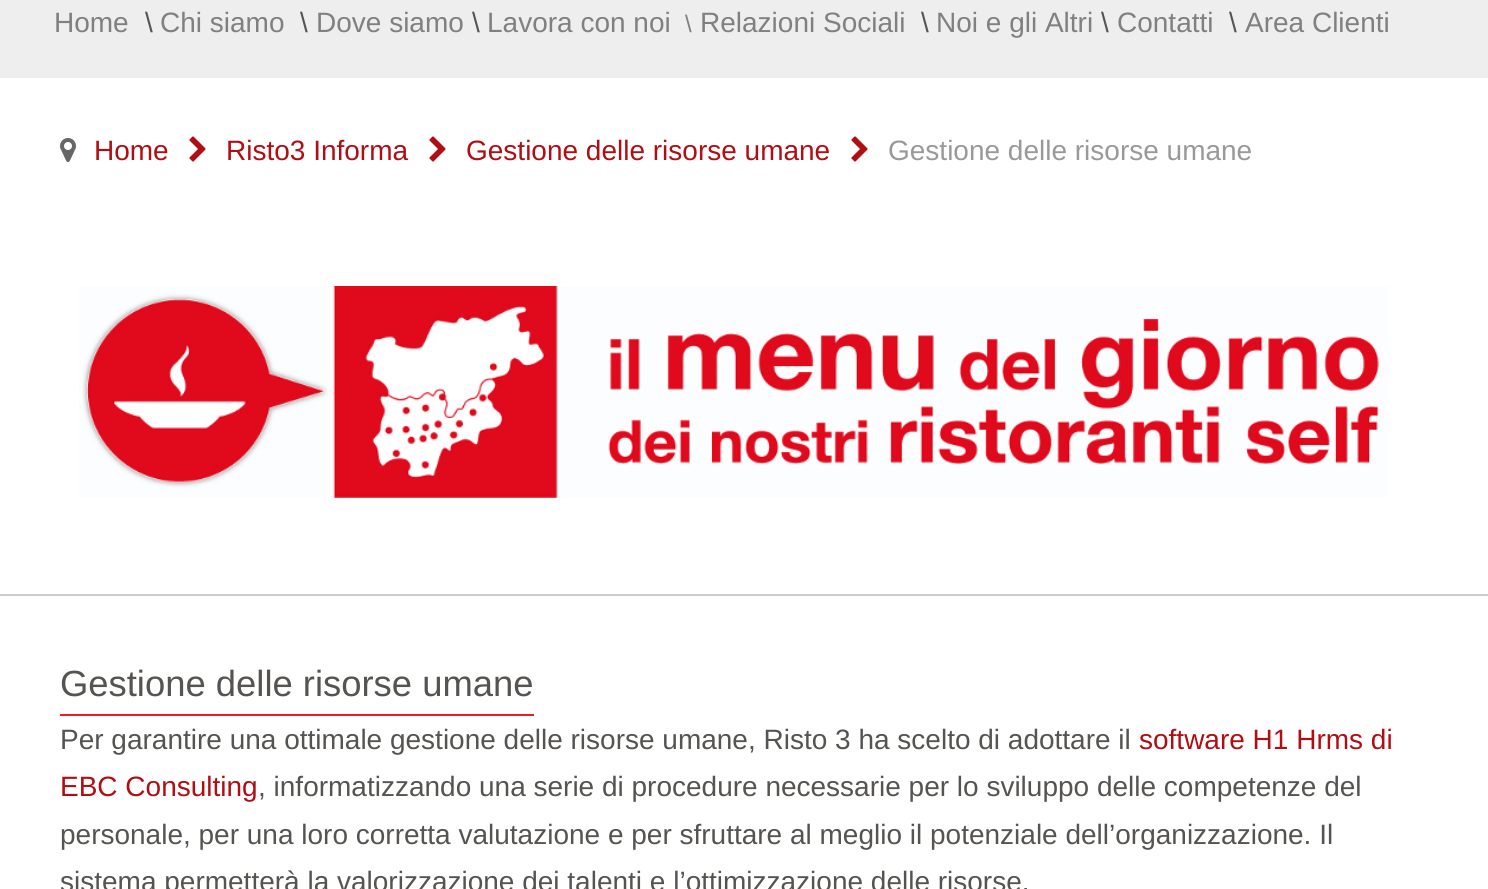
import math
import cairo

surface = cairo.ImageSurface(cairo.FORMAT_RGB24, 1488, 889)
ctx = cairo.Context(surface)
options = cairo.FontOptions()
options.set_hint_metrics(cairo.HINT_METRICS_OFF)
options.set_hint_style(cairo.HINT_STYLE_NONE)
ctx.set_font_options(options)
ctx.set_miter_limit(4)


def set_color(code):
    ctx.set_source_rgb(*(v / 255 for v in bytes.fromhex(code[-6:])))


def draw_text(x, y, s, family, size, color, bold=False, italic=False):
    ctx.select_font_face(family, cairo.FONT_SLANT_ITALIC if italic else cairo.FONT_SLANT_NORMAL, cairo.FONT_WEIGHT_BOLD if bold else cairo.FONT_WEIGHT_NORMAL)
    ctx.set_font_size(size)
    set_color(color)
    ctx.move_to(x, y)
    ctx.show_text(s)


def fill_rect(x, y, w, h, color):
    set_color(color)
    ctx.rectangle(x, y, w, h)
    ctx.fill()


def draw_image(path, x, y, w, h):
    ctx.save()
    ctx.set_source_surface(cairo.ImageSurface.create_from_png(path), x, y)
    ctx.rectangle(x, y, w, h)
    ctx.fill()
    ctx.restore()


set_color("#ffffff")
ctx.paint()
fill_rect(0, 0, 1488, 78, "#eeeeee")
draw_text(54, 32, "Home", "Liberation Sans", 28, "#808080")
draw_text(145, 32, "\\", "Liberation Sans", 28, "#565451")
draw_text(160, 32, "Chi siamo", "Liberation Sans", 28, "#808080")
draw_text(300, 32, "\\", "Liberation Sans", 28, "#565451")
draw_text(316, 32, "Dove siamo", "Liberation Sans", 28, "#808080")
draw_text(472, 32, "\\", "Liberation Sans", 28, "#565451")
draw_text(487, 32, "Lavora con noi", "Liberation Sans", 28, "#808080")
draw_text(685, 32, "\\", "Liberation Sans", 24, "#808080")
draw_text(700, 32, "Relazioni Sociali", "Liberation Sans", 28, "#808080")
draw_text(921, 32, "\\", "Liberation Sans", 28, "#565451")
draw_text(936, 32, "Noi e gli Altri", "Liberation Sans", 28, "#808080")
draw_text(1101, 32, "\\", "Liberation Sans", 28, "#565451")
draw_text(1117, 32, "Contatti", "Liberation Sans", 28, "#808080")
draw_text(1229, 32, "\\", "Liberation Sans", 28, "#565451")
draw_text(1245, 32, "Area Clienti", "Liberation Sans", 28, "#808080")
draw_image("assets/img1.png", 60, 138, 16, 24)
draw_text(94, 160, "Home", "Liberation Sans", 28, "#b00e13")
draw_image("assets/img2.png", 189, 136, 17, 26)
draw_text(226, 160, "Risto3 Informa", "Liberation Sans", 28, "#b00e13")
draw_image("assets/img2.png", 429, 136, 17, 26)
draw_text(466, 160, "Gestione delle risorse umane", "Liberation Sans", 28, "#b00e13")
draw_image("assets/img2.png", 851, 136, 17, 26)
draw_text(888, 160, "Gestione delle risorse umane", "Liberation Sans", 28, "#999999")
draw_image("assets/img3.png", 79, 286, 1309, 212)
fill_rect(0, 594, 1488, 2, "#cecbcb")
fill_rect(60, 714, 474, 2, "#ed1d24")
draw_text(60, 696, "Gestione delle risorse umane", "Liberation Sans", 36.4, "#565451")
draw_text(60, 749, "Per garantire una ottimale gestione delle risorse umane, Risto 3 ha scelto di adottare il", "Liberation Sans", 28, "#565451")
draw_text(1139, 749, "software H1 Hrms di", "Liberation Sans", 28, "#b00e13")
draw_text(60, 796, "EBC Consulting", "Liberation Sans", 28, "#b00e13")
draw_text(258, 796, ", informatizzando una serie di procedure necessarie per lo sviluppo delle competenze del", "Liberation Sans", 28, "#565451")
draw_text(60, 844, "personale, per una loro corretta valutazione e per sfruttare al meglio il potenziale dell’organizzazione. Il", "Liberation Sans", 28, "#565451")
draw_text(60, 891, "sistema permetterà la valorizzazione dei talenti e l’ottimizzazione delle risorse.", "Liberation Sans", 28, "#565451")
surface.write_to_png("output.png")
